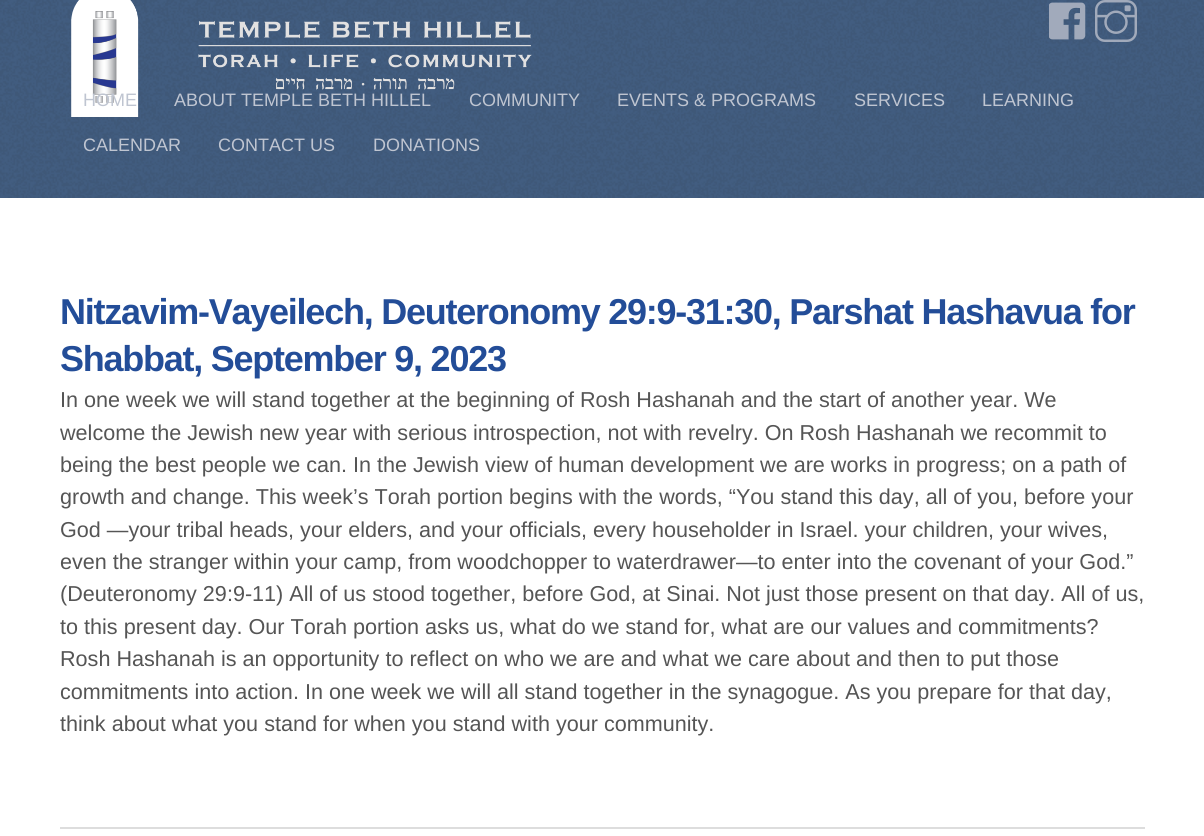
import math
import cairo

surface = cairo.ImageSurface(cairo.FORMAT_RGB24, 1204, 836)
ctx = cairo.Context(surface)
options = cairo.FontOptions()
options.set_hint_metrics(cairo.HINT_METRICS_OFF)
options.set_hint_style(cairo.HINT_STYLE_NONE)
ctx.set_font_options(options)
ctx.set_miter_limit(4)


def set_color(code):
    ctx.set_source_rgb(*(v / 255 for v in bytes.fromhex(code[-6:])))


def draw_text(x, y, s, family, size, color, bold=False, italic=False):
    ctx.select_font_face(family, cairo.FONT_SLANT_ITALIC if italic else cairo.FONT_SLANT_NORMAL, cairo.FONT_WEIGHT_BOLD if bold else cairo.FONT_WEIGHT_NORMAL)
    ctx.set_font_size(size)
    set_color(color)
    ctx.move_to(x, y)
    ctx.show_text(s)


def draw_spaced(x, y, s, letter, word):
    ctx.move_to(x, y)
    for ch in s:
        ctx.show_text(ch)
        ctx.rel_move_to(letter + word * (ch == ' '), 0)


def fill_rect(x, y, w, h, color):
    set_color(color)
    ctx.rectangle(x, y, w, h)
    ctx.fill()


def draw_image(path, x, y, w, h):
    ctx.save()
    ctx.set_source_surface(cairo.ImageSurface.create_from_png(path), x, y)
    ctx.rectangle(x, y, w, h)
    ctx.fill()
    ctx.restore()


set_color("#ffffff")
ctx.paint()
draw_image("assets/img1.png", 0, 0, 1204, 198)
draw_image("assets/img2.png", 71, 0, 461, 117)
draw_image("assets/img3.png", 1049, 2, 37, 38)
draw_image("assets/img4.png", 1095, 0, 42, 42)
draw_text(83, 106, "HOME", "Liberation Sans", 18, "#bfc5d1")
draw_text(174, 106, "ABOUT TEMPLE BETH HILLEL", "Liberation Sans", 18, "#bfc5d1")
draw_text(469, 106, "COMMUNITY", "Liberation Sans", 18, "#bfc5d1")
draw_text(617, 106, "EVENTS & PROGRAMS", "Liberation Sans", 18, "#bfc5d1")
draw_text(854, 106, "SERVICES", "Liberation Sans", 18, "#bfc5d1")
draw_text(982, 106, "LEARNING", "Liberation Sans", 18, "#bfc5d1")
draw_text(83, 151, "CALENDAR", "Liberation Sans", 18, "#bfc5d1")
draw_text(218, 151, "CONTACT US", "Liberation Sans", 18, "#bfc5d1")
draw_text(373, 151, "DONATIONS", "Liberation Sans", 18, "#bfc5d1")
ctx.select_font_face("Liberation Sans", cairo.FONT_SLANT_NORMAL, cairo.FONT_WEIGHT_BOLD)
ctx.set_font_size(36)
set_color("#234d98")
draw_spaced(60, 324, "Nitzavim-Vayeilech, Deuteronomy 29:9-31:30, Parshat Hashavua for", -1.25, 0)
draw_spaced(60, 371, "Shabbat, September 9, 2023", -1.25, 0)
draw_text(60, 407, "In one week we will stand together at the beginning of Rosh Hashanah and the start of another year. We", "Liberation Sans", 21.6, "#555555")
draw_text(60, 440, "welcome the Jewish new year with serious introspection, not with revelry. On Rosh Hashanah we recommit to", "Liberation Sans", 21.6, "#555555")
draw_text(60, 472, "being the best people we can. In the Jewish view of human development we are works in progress; on a path of", "Liberation Sans", 21.6, "#555555")
draw_text(60, 504, "growth and change. This week’s Torah portion begins with the words, “You stand this day, all of you, before your", "Liberation Sans", 21.6, "#555555")
draw_text(60, 537, "God —your tribal heads, your elders, and your officials, every householder in Israel. your children, your wives,", "Liberation Sans", 21.6, "#555555")
draw_text(60, 569, "even the stranger within your camp, from woodchopper to waterdrawer—to enter into the covenant of your God.”", "Liberation Sans", 21.6, "#555555")
draw_text(60, 601, "(Deuteronomy 29:9-11) All of us stood together, before God, at Sinai. Not just those present on that day. All of us,", "Liberation Sans", 21.6, "#555555")
draw_text(60, 634, "to this present day. Our Torah portion asks us, what do we stand for, what are our values and commitments?", "Liberation Sans", 21.6, "#555555")
draw_text(60, 666, "Rosh Hashanah is an opportunity to reflect on who we are and what we care about and then to put those", "Liberation Sans", 21.6, "#555555")
draw_text(60, 699, "commitments into action. In one week we will all stand together in the synagogue. As you prepare for that day,", "Liberation Sans", 21.6, "#555555")
draw_text(60, 731, "think about what you stand for when you stand with your community.", "Liberation Sans", 21.6, "#555555")
fill_rect(60, 827, 1085, 2, "#dddddd")
surface.write_to_png("output.png")
